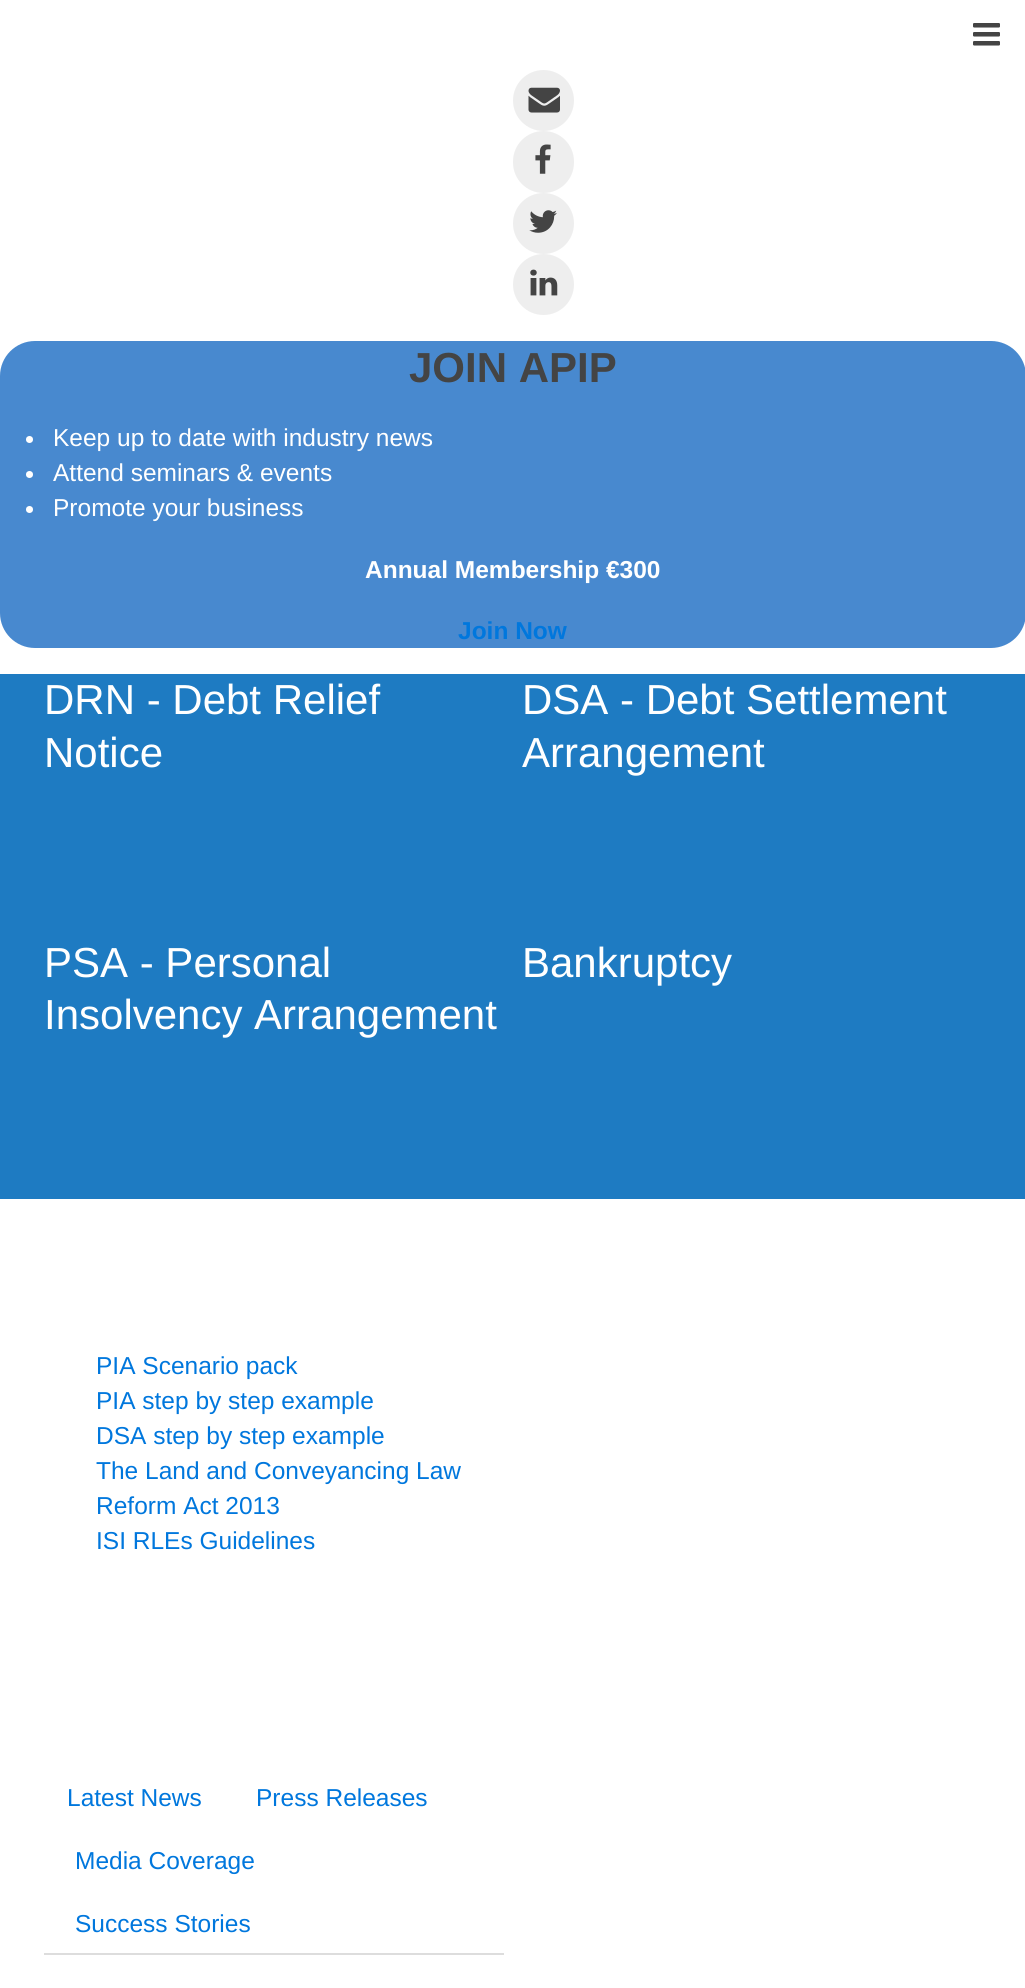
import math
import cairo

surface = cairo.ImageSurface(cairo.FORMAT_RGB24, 1025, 1988)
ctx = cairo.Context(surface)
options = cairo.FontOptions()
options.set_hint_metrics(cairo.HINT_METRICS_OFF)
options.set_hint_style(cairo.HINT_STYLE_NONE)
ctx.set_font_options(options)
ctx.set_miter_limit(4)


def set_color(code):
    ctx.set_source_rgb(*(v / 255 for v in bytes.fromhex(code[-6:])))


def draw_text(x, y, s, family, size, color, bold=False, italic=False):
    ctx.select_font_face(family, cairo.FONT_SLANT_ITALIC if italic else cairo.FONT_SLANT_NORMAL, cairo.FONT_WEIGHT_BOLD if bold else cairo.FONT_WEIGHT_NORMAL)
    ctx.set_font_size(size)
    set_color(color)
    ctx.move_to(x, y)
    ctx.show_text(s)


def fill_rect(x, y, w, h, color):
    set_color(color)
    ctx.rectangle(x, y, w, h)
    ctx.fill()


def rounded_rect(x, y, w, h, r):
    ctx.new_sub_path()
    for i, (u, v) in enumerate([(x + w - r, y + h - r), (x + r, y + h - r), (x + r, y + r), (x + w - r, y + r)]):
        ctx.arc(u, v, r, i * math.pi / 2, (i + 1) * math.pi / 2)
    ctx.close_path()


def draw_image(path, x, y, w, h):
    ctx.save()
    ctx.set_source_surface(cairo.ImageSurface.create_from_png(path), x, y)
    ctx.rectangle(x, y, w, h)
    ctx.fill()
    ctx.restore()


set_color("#ffffff")
ctx.paint()
draw_image("assets/img1.png", 973, 23, 27, 23)
set_color("#eeeeee")
ctx.arc(543.5, 100.5, 30.5, 0, 2 * math.pi)
ctx.fill()
draw_image("assets/img2.png", 528, 87, 32, 26)
rounded_rect(513, 131, 61, 62, 30.5)
ctx.fill()
draw_image("assets/img3.png", 535, 144, 16, 30)
ctx.arc(543.5, 223.5, 30.5, 0, 2 * math.pi)
ctx.fill()
draw_image("assets/img4.png", 529, 210, 28, 23)
ctx.arc(543.5, 284.5, 30.5, 0, 2 * math.pi)
ctx.fill()
draw_image("assets/img5.png", 530, 269, 28, 27)
set_color("#4889cf")
rounded_rect(0, 341, 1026, 307, 35)
ctx.fill()
draw_text(409, 382, "JOIN APIP", "Liberation Sans", 42, "#444444", bold=True)
set_color("#ffffff")
ctx.new_path()
ctx.arc(29.5, 439.5, 3.5, 0, 2 * math.pi)
ctx.fill()
draw_text(53, 446, "Keep up to date with industry news", "Liberation Sans", 24.5, "#ffffff")
ctx.new_path()
ctx.arc(29.5, 474.5, 3.5, 0, 2 * math.pi)
ctx.fill()
draw_text(53, 481, "Attend seminars & events", "Liberation Sans", 24.5, "#ffffff")
ctx.new_path()
ctx.arc(29.5, 509.5, 3.5, 0, 2 * math.pi)
ctx.fill()
draw_text(53, 516, "Promote your business", "Liberation Sans", 24.5, "#ffffff")
draw_text(365, 578, "Annual Membership €300", "Liberation Sans", 24.5, "#ffffff", bold=True)
draw_text(458, 639, "Join Now", "Liberation Sans", 24.5, "#0077dd", bold=True)
fill_rect(0, 674, 1025, 525, "#1e7bc2")
draw_text(44, 714, "DRN - Debt Relief", "Liberation Sans", 42, "#ffffff")
draw_text(44, 767, "Notice", "Liberation Sans", 42, "#ffffff")
draw_text(522, 714, "DSA - Debt Settlement", "Liberation Sans", 42, "#ffffff")
draw_text(522, 767, "Arrangement", "Liberation Sans", 42, "#ffffff")
draw_text(44, 977, "PSA - Personal", "Liberation Sans", 42, "#ffffff")
draw_text(44, 1029, "Insolvency Arrangement", "Liberation Sans", 42, "#ffffff")
draw_text(522, 977, "Bankruptcy", "Liberation Sans", 42, "#ffffff")
draw_text(96, 1374, "PIA Scenario pack", "Liberation Sans", 24.5, "#0077dd")
draw_text(96, 1409, "PIA step by step example", "Liberation Sans", 24.5, "#0077dd")
draw_text(96, 1444, "DSA step by step example", "Liberation Sans", 24.5, "#0077dd")
draw_text(96, 1479, "The Land and Conveyancing Law", "Liberation Sans", 24.5, "#0077dd")
draw_text(96, 1514, "Reform Act 2013", "Liberation Sans", 24.5, "#0077dd")
draw_text(96, 1549, "ISI RLEs Guidelines", "Liberation Sans", 24.5, "#0077dd")
fill_rect(44, 1953, 460, 2, "#dddddd")
draw_text(67, 1806, "Latest News", "Liberation Sans", 24.5, "#0077dd")
draw_text(256, 1806, "Press Releases", "Liberation Sans", 24.5, "#0077dd")
draw_text(75, 1869, "Media Coverage", "Liberation Sans", 24.5, "#0077dd")
draw_text(75, 1932, "Success Stories", "Liberation Sans", 24.5, "#0077dd")
surface.write_to_png("output.png")
